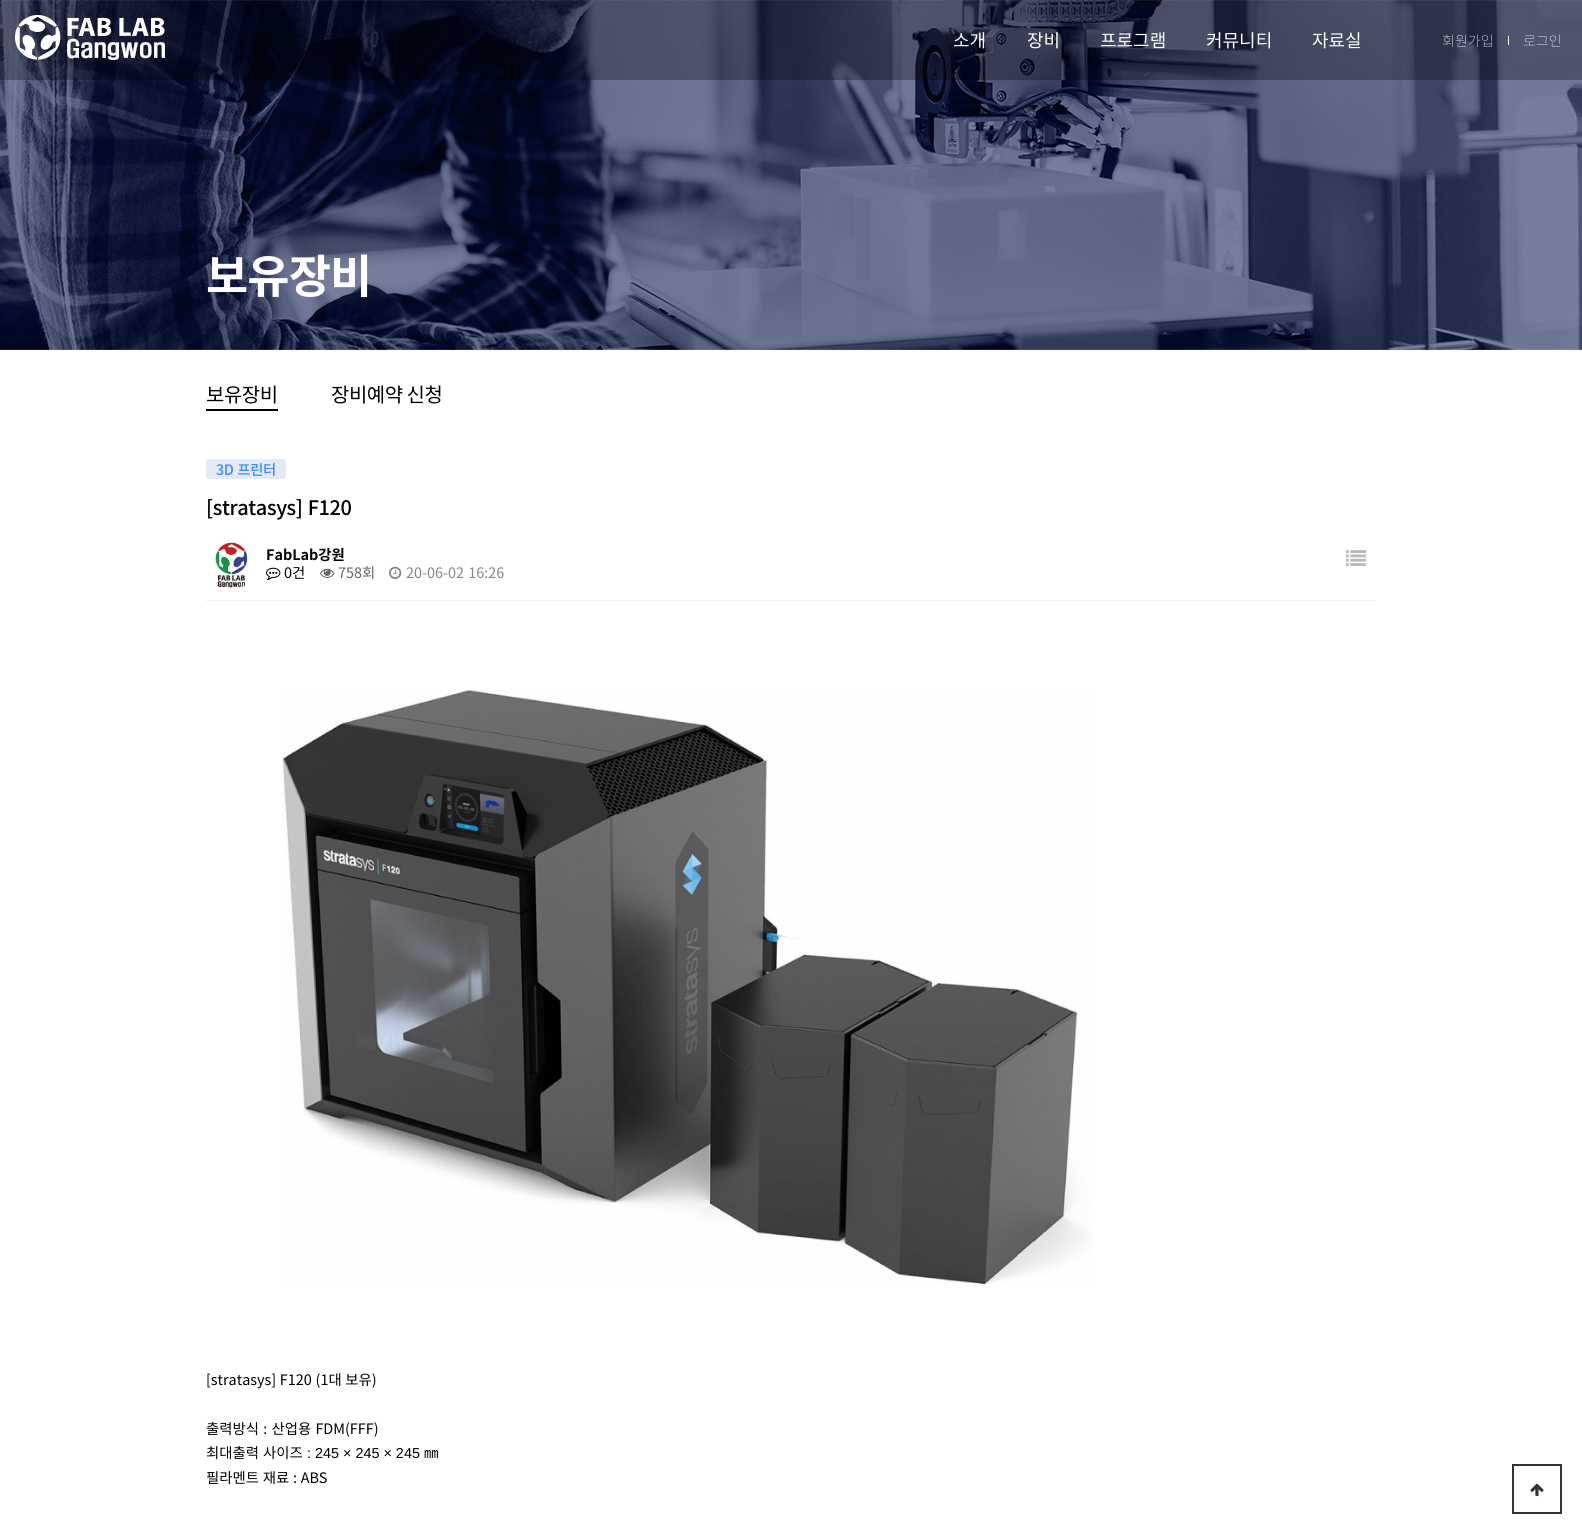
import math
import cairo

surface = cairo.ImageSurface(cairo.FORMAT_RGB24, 1582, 1534)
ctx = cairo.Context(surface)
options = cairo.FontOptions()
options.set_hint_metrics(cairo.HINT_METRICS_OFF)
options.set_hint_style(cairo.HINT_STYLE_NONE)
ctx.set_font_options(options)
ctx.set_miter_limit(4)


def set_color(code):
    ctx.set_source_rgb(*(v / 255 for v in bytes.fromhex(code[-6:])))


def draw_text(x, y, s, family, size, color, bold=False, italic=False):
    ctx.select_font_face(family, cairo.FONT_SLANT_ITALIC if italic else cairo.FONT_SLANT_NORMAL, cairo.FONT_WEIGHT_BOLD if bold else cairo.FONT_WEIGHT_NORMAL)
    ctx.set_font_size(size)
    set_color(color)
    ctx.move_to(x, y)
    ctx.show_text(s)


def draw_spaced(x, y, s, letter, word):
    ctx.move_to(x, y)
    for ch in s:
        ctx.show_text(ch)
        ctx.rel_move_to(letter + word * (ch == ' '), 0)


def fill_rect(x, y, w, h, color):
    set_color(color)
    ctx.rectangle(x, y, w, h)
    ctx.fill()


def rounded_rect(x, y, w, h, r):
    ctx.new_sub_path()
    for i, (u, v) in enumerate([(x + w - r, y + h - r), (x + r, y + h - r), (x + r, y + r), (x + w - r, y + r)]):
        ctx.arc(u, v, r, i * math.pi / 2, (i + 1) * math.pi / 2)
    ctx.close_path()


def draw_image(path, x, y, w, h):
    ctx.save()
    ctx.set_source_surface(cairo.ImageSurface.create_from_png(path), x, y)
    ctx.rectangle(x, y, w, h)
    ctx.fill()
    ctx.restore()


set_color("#ffffff")
ctx.paint()
draw_image("assets/img2.png", 0, 0, 1582, 350)
ctx.set_source_rgba(0, 0, 0, 0.3)
ctx.rectangle(0, 0, 1582, 80)
ctx.fill()
draw_image("assets/img1.png", 15, 15, 150, 45)
draw_text(953, 47, "소개", "Noto Sans KR", 18, "#ffffff")
draw_text(1027, 47, "장비", "Noto Sans KR", 18, "#ffffff")
draw_text(1100, 47, "프로그램", "Noto Sans KR", 18, "#ffffff")
draw_text(1206, 47, "커뮤니티", "Noto Sans KR", 18, "#ffffff")
draw_text(1312, 47, "자료실", "Noto Sans KR", 18, "#ffffff")
draw_text(1442, 46, "회원가입", "Noto Sans KR Thin", 14, "#ffffff")
fill_rect(1508, 36, 1, 9, "#ffffff")
draw_text(1523, 46, "로그인", "Noto Sans KR Thin", 14, "#ffffff")
ctx.select_font_face("Noto Sans KR", cairo.FONT_SLANT_NORMAL, cairo.FONT_WEIGHT_BOLD)
ctx.set_font_size(46)
draw_spaced(206, 293, "보유장비", -1, 0)
ctx.select_font_face("Noto Sans KR")
ctx.set_font_size(20)
set_color("#000000")
draw_spaced(206, 402, "보유장비", -0.5, 0)
fill_rect(206, 409, 72, 2, "#000000")
draw_spaced(331, 402, "장비예약 신청", -0.5, 0)
set_color("#e2eaf6")
rounded_rect(206, 459, 80, 20, 3)
ctx.fill()
ctx.select_font_face("Noto Sans KR Medium")
ctx.set_font_size(14.4)
set_color("#3a8afd")
draw_spaced(216, 475, "3D 프린터", -0.4, 1)
ctx.set_font_size(20)
set_color("#000000")
draw_spaced(206, 515, "[stratasys] F120", -0.4, 1)
fill_rect(206, 600, 1170, 1, "#f1f1f1")
draw_image("assets/img3.png", 215, 542, 33, 46)
draw_text(266, 560, "FabLab강원", "Noto Sans KR", 14.4, "#000000", bold=True)
draw_image("assets/img4.png", 266, 567, 15, 13)
draw_text(284, 578, "0건", "Noto Sans KR", 14.4, "#000000")
draw_image("assets/img5.png", 320, 568, 15, 10)
draw_text(338, 578, "758회", "Noto Sans KR", 14.4, "#666666")
draw_image("assets/img6.png", 389, 566, 13, 13)
set_color("#888888")
draw_spaced(406, 578, "20-06-02 16:26", 0, 1)
draw_image("assets/img7.png", 1346, 550, 21, 16)
draw_image("assets/img8.png", 282, 689, 810, 596)
set_color("#000000")
draw_spaced(206, 1385, "[stratasys] F120 (1대 보유)", 0, 0.5)
draw_spaced(206, 1434, "출력방식 : 산업용 FDM(FFF)", 0, 1)
draw_text(206, 1458, "최대출력", "Noto Sans KR", 14.4, "#000000")
draw_text(263, 1458, "사이즈", "Noto Sans KR", 14.4, "#000000")
draw_text(307, 1458, ": 245 × 245 × 245", "Liberation Sans", 14.4, "#000000")
draw_text(424, 1458, "㎜", "Noto Sans KR", 14.4, "#000000")
draw_spaced(206, 1483, "필라멘트 재료 : ABS", 0, 0.5)
ctx.rectangle(1513, 1465, 48, 48)
set_color("#333333")
ctx.stroke()
draw_image("assets/img9.png", 1530, 1483, 14, 14)
surface.write_to_png("output.png")
